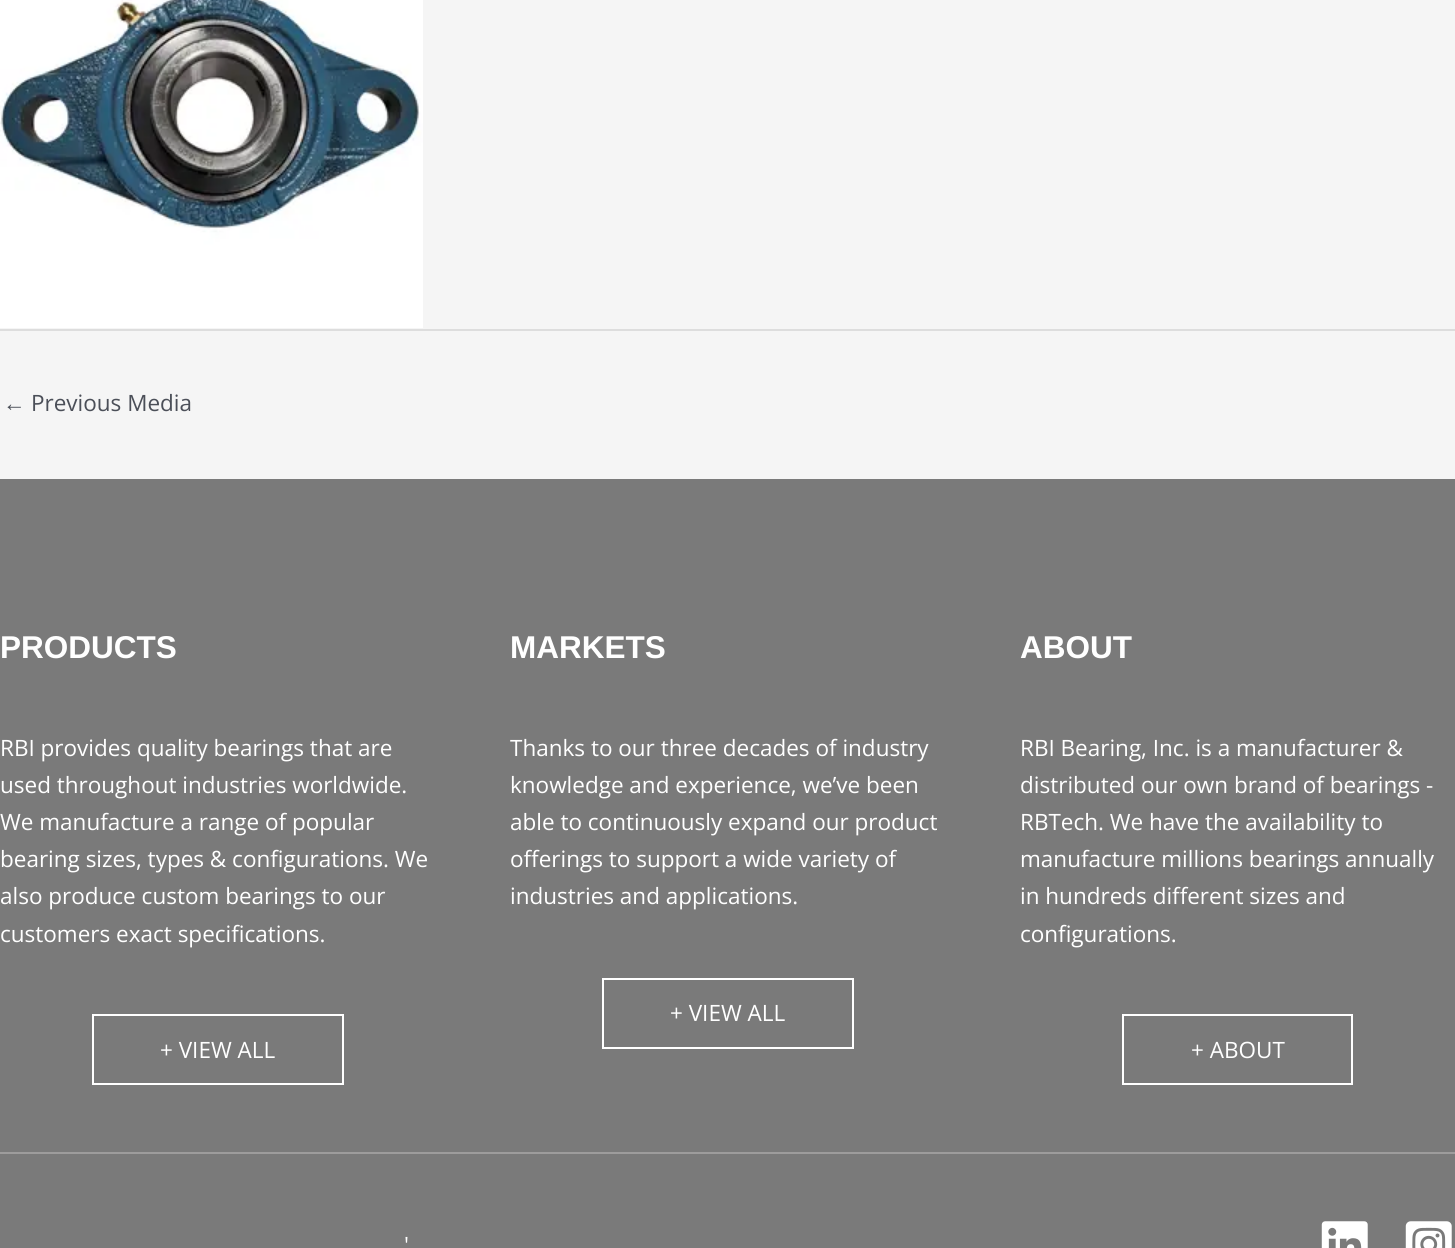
import math
import cairo

surface = cairo.ImageSurface(cairo.FORMAT_RGB24, 1455, 1248)
ctx = cairo.Context(surface)
options = cairo.FontOptions()
options.set_hint_metrics(cairo.HINT_METRICS_OFF)
options.set_hint_style(cairo.HINT_STYLE_NONE)
ctx.set_font_options(options)
ctx.set_miter_limit(4)


def set_color(code):
    ctx.set_source_rgb(*(v / 255 for v in bytes.fromhex(code[-6:])))


def draw_text(x, y, s, family, size, color, bold=False, italic=False):
    ctx.select_font_face(family, cairo.FONT_SLANT_ITALIC if italic else cairo.FONT_SLANT_NORMAL, cairo.FONT_WEIGHT_BOLD if bold else cairo.FONT_WEIGHT_NORMAL)
    ctx.set_font_size(size)
    set_color(color)
    ctx.move_to(x, y)
    ctx.show_text(s)


def fill_rect(x, y, w, h, color):
    set_color(color)
    ctx.rectangle(x, y, w, h)
    ctx.fill()


def draw_image(path, x, y, w, h):
    ctx.save()
    ctx.set_source_surface(cairo.ImageSurface.create_from_png(path), x, y)
    ctx.rectangle(x, y, w, h)
    ctx.fill()
    ctx.restore()


set_color("#f5f5f5")
ctx.paint()
draw_image("assets/img1.png", 0, 0, 423, 328)
fill_rect(0, 329, 1455, 2, "#dddddd")
draw_text(3, 411, "←", "Liberation Sans", 22.5, "#4b4f58")
draw_text(31, 411, "Previous Media", "Open Sans", 22.5, "#4b4f58")
fill_rect(0, 479, 1455, 673, "#7a7a7a")
draw_text(0, 658, "PRODUCTS", "Liberation Sans", 31.5, "#ffffff", bold=True)
draw_text(0, 756, "RBI provides quality bearings that are", "Open Sans", 22.5, "#ffffff")
draw_text(0, 793, "used throughout industries worldwide.", "Open Sans", 22.5, "#ffffff")
draw_text(0, 830, "We manufacture a range of popular", "Open Sans", 22.5, "#ffffff")
draw_text(0, 867, "bearing sizes, types & configurations. We", "Open Sans", 22.5, "#ffffff")
draw_text(0, 904, "also produce custom bearings to our", "Open Sans", 22.5, "#ffffff")
draw_text(0, 942, "customers exact specifications.", "Open Sans", 22.5, "#ffffff")
ctx.rectangle(93, 1015, 250, 69)
ctx.stroke()
draw_text(160, 1058, "+ VIEW ALL", "Open Sans", 22.5, "#ffffff")
draw_text(510, 658, "MARKETS", "Liberation Sans", 31.5, "#ffffff", bold=True)
draw_text(510, 756, "Thanks to our three decades of industry", "Open Sans", 22.5, "#ffffff")
draw_text(510, 793, "knowledge and experience, we’ve been", "Open Sans", 22.5, "#ffffff")
draw_text(510, 830, "able to continuously expand our product", "Open Sans", 22.5, "#ffffff")
draw_text(510, 867, "offerings to support a wide variety of", "Open Sans", 22.5, "#ffffff")
draw_text(510, 904, "industries and applications.", "Open Sans", 22.5, "#ffffff")
ctx.rectangle(603, 979, 250, 69)
ctx.stroke()
draw_text(670, 1021, "+ VIEW ALL", "Open Sans", 22.5, "#ffffff")
draw_text(1020, 658, "ABOUT", "Liberation Sans", 31.5, "#ffffff", bold=True)
draw_text(1020, 756, "RBI Bearing, Inc. is a manufacturer &", "Open Sans", 22.5, "#ffffff")
draw_text(1020, 793, "distributed our own brand of bearings -", "Open Sans", 22.5, "#ffffff")
draw_text(1020, 830, "RBTech. We have the availability to", "Open Sans", 22.5, "#ffffff")
draw_text(1020, 867, "manufacture millions bearings annually", "Open Sans", 22.5, "#ffffff")
draw_text(1020, 904, "in hundreds different sizes and", "Open Sans", 22.5, "#ffffff")
draw_text(1020, 942, "configurations.", "Open Sans", 22.5, "#ffffff")
ctx.rectangle(1123, 1015, 229, 69)
ctx.stroke()
draw_text(1191, 1058, "+ ABOUT", "Open Sans", 22.5, "#ffffff")
fill_rect(0, 1154, 1455, 94, "#7a7a7a")
fill_rect(0, 1152, 1455, 2, "#9d9c9c")
draw_text(404, 1253, "'", "Open Sans", 22.5, "#ffffff")
draw_image("assets/img2.png", 1321, 1221, 47, 27)
draw_image("assets/img3.png", 1405, 1221, 47, 27)
surface.write_to_png("output.png")
